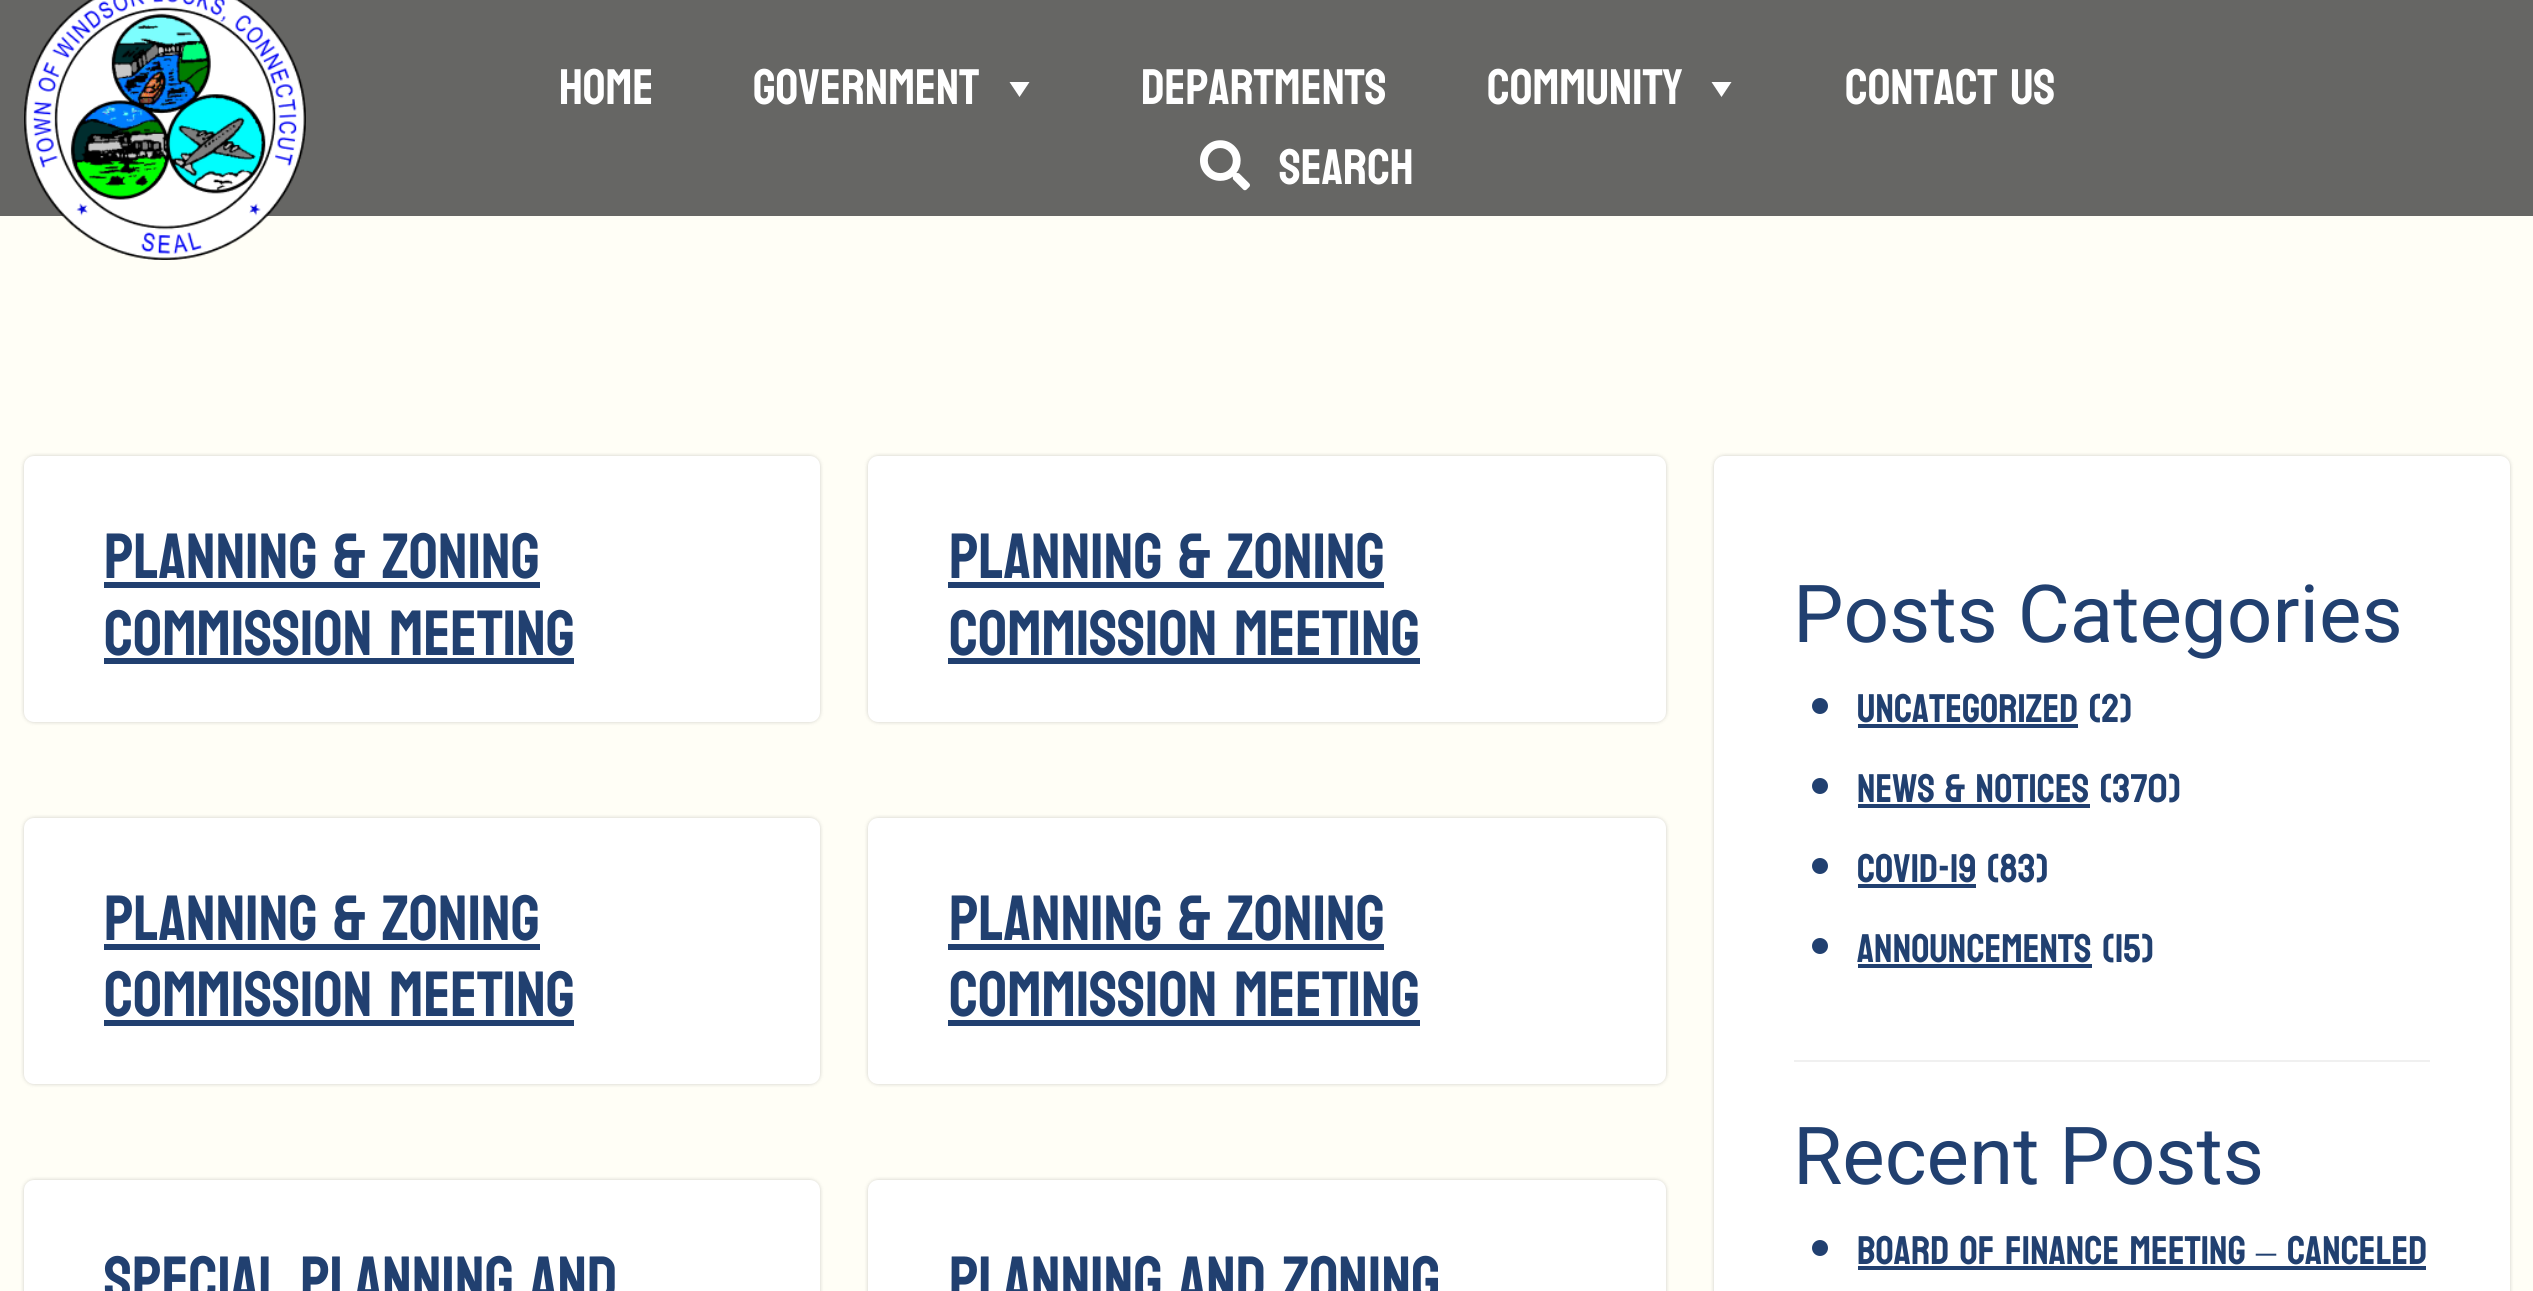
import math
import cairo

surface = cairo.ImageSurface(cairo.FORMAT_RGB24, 2533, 1291)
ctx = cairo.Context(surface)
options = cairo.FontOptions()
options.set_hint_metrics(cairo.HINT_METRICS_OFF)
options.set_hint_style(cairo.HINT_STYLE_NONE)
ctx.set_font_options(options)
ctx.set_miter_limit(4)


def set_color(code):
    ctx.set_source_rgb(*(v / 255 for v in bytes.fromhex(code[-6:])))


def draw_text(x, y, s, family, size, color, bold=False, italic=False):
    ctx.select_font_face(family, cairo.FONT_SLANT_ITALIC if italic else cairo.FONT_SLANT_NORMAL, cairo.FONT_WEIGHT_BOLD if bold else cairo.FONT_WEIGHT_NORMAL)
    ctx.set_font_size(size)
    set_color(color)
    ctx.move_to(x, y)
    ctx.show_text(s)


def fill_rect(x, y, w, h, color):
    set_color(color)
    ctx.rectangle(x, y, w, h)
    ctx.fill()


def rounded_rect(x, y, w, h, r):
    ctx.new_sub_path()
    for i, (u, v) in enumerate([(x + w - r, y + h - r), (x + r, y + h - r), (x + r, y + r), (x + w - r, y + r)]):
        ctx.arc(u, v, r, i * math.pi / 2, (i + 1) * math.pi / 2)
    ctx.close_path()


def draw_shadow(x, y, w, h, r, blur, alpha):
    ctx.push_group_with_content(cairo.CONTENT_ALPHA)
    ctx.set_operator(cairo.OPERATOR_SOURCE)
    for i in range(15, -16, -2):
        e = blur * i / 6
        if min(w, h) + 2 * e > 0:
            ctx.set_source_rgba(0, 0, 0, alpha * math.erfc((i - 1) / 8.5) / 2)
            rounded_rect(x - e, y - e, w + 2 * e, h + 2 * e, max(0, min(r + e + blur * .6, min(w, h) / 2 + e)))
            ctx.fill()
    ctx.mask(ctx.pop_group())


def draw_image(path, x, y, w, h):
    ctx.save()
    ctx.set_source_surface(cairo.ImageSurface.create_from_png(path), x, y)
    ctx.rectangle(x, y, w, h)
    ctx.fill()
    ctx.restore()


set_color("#fffef6")
ctx.paint()
fill_rect(0, 0, 2533, 216, "#666664")
draw_image("assets/img1.png", 24, 0, 282, 260)
draw_text(559, 104, "HOME", "Koulen", 50, "#ffffff")
draw_text(753, 104, "GOVERNMENT", "Koulen", 50, "#ffffff")
ctx.new_path()
ctx.move_to(1029.5, 82)
ctx.line_to(1019.5, 97)
ctx.line_to(1009.5, 82)
ctx.close_path()
ctx.fill()
draw_text(1141, 104, "DEPARTMENTS", "Koulen", 50, "#ffffff")
draw_text(1487, 104, "COMMUNITY", "Koulen", 50, "#ffffff")
ctx.new_path()
ctx.move_to(1731.5, 82)
ctx.line_to(1721.5, 97)
ctx.line_to(1711.5, 82)
ctx.close_path()
ctx.fill()
draw_text(1845, 104, "CONTACT US", "Koulen", 50, "#ffffff")
draw_image("assets/img2.png", 1200, 140, 50, 51)
draw_text(1279, 184, "SEARCH", "Koulen", 50, "#ffffff")
set_color("#000000")
draw_shadow(24, 456, 796, 266, 10, 2, 0.2)
set_color("#ffffff")
rounded_rect(24, 456, 796, 266, 10)
ctx.fill()
draw_text(104, 578, "Planning & Zoning", "Koulen", 64, "#214070")
fill_rect(104, 582, 436, 6, "#214070")
draw_text(104, 655, "Commission Meeting", "Koulen", 64, "#214070")
fill_rect(104, 658, 470, 6, "#214070")
set_color("#000000")
draw_shadow(868, 456, 798, 266, 10, 2, 0.2)
set_color("#ffffff")
rounded_rect(868, 456, 798, 266, 10)
ctx.fill()
draw_text(949, 578, "Planning & Zoning", "Koulen", 64, "#214070")
fill_rect(948, 582, 436, 6, "#214070")
draw_text(949, 655, "Commission Meeting", "Koulen", 64, "#214070")
fill_rect(948, 658, 472, 6, "#214070")
set_color("#000000")
draw_shadow(24, 818, 796, 266, 10, 2, 0.2)
set_color("#ffffff")
rounded_rect(24, 818, 796, 266, 10)
ctx.fill()
draw_text(104, 940, "Planning & Zoning", "Koulen", 64, "#214070")
fill_rect(104, 944, 436, 6, "#214070")
draw_text(104, 1016, "Commission Meeting", "Koulen", 64, "#214070")
fill_rect(104, 1020, 470, 6, "#214070")
set_color("#000000")
draw_shadow(868, 818, 798, 266, 10, 2, 0.2)
set_color("#ffffff")
rounded_rect(868, 818, 798, 266, 10)
ctx.fill()
draw_text(949, 940, "Planning & Zoning", "Koulen", 64, "#214070")
fill_rect(948, 944, 436, 6, "#214070")
draw_text(949, 1016, "Commission Meeting", "Koulen", 64, "#214070")
fill_rect(948, 1020, 472, 6, "#214070")
set_color("#000000")
draw_shadow(24, 1180, 796, 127, 10, 2, 0.2)
set_color("#ffffff")
rounded_rect(24, 1180, 796, 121, 10)
ctx.fill()
draw_text(104, 1301, "Special Planning and", "Koulen", 64, "#214070")
set_color("#000000")
draw_shadow(868, 1180, 798, 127, 10, 2, 0.2)
set_color("#ffffff")
rounded_rect(868, 1180, 798, 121, 10)
ctx.fill()
draw_text(949, 1301, "Planning and Zoning", "Koulen", 64, "#214070")
set_color("#000000")
draw_shadow(1714, 456, 796, 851, 10, 2, 0.2)
set_color("#ffffff")
rounded_rect(1714, 456, 796, 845, 10)
ctx.fill()
fill_rect(1794, 1060, 636, 2, "#f0f0f0")
draw_text(1793, 642, "Posts Categories", "Roboto", 80, "#214070")
ctx.new_path()
ctx.arc(1820, 706, 8, 0, 2 * math.pi)
ctx.fill()
draw_text(1857, 722, "Uncategorized (2)", "Koulen", 40, "#214070")
fill_rect(1858, 724, 220, 4, "#214070")
ctx.new_path()
ctx.arc(1820, 786, 8, 0, 2 * math.pi)
ctx.fill()
draw_text(1857, 802, "News & Notices (370)", "Koulen", 40, "#214070")
fill_rect(1858, 804, 232, 4, "#214070")
ctx.new_path()
ctx.arc(1820, 866, 8, 0, 2 * math.pi)
ctx.fill()
draw_text(1857, 882, "Covid-19 (83)", "Koulen", 40, "#214070")
fill_rect(1858, 884, 118, 4, "#214070")
ctx.new_path()
ctx.arc(1820, 946, 8, 0, 2 * math.pi)
ctx.fill()
draw_text(1857, 962, "Announcements (15)", "Koulen", 40, "#214070")
fill_rect(1858, 964, 234, 4, "#214070")
draw_text(1793, 1184, "Recent Posts", "Roboto", 80, "#214070")
ctx.new_path()
ctx.arc(1820, 1248, 8, 0, 2 * math.pi)
ctx.fill()
draw_text(1857, 1264, "Board of Finance Meeting", "Koulen", 40, "#214070")
draw_text(2256, 1264, "–", "Liberation Serif", 40, "#214070")
fill_rect(1858, 1266, 568, 4, "#214070")
draw_text(2287, 1264, "Canceled", "Koulen", 40, "#214070")
surface.write_to_png("output.png")
